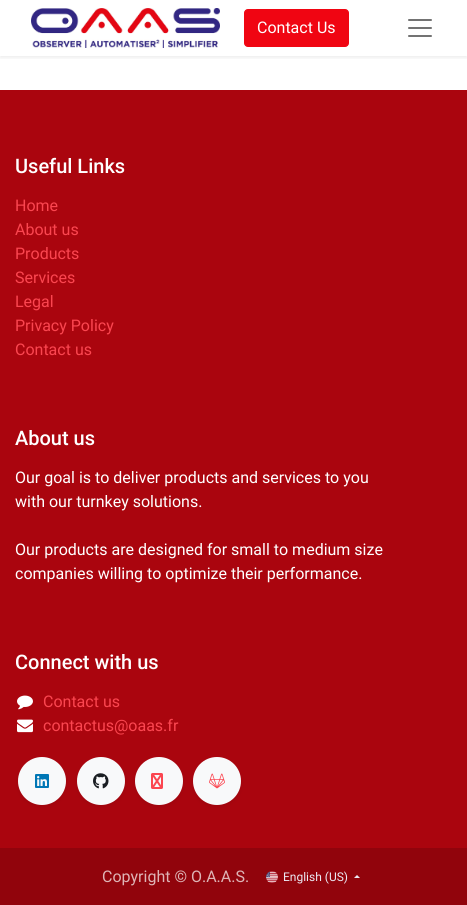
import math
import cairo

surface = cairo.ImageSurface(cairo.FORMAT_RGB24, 467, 905)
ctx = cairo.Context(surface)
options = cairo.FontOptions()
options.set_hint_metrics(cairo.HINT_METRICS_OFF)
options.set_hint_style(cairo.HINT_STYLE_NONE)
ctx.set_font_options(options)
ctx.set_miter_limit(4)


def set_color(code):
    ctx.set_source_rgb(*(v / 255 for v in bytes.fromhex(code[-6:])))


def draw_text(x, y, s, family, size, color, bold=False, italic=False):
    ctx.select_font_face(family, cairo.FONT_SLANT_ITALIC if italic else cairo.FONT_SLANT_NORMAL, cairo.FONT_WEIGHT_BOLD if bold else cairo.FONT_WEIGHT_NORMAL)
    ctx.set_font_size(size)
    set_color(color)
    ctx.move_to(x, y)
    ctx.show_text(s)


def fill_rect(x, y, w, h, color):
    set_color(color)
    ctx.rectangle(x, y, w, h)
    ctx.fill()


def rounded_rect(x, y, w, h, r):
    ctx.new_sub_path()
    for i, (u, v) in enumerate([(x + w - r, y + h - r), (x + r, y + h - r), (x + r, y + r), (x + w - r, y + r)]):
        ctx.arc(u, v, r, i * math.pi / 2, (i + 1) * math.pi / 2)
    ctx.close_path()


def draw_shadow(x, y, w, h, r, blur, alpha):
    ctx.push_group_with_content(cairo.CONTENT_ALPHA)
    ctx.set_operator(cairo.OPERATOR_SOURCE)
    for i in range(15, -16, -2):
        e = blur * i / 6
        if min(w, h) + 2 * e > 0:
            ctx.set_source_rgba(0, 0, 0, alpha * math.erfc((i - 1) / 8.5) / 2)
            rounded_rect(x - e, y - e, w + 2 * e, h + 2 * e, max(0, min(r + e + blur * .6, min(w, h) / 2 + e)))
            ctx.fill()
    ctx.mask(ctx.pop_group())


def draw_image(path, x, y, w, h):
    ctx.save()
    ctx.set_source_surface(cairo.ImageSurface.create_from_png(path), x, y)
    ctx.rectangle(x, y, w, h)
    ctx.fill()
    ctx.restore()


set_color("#ffffff")
ctx.paint()
ctx.save()
ctx.rectangle(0, 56, 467, 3)
ctx.clip()
set_color("#000000")
draw_shadow(0, 2, 467, 56, 0, 2, 0.07)
ctx.restore()
draw_image("assets/img1.png", 31, 8, 189, 40)
set_color("#f00512")
rounded_rect(244.5, 9.5, 104, 37, 3.5)
ctx.fill_preserve()
ctx.set_line_width(1)
ctx.stroke()
draw_text(257, 33, "Contact Us", "Roboto", 16, "#ffffff")
draw_image("assets/img2.png", 408, 19, 24, 18)
fill_rect(0, 90, 467, 758, "#aa050e")
draw_text(15, 173, "Useful Links", "Roboto Medium", 20, "#ffffff")
draw_text(15, 211, "Home", "Roboto", 16, "#fb4650")
draw_text(15, 235, "About us", "Roboto", 16, "#fb4650")
draw_text(15, 259, "Products", "Roboto", 16, "#fb4650")
draw_text(15, 283, "Services", "Roboto", 16, "#fb4650")
draw_text(15, 307, "Legal", "Roboto", 16, "#fb4650")
draw_text(15, 331, "Privacy Policy", "Roboto", 16, "#fb4650")
draw_text(15, 355, "Contact us", "Roboto", 16, "#fb4650")
draw_text(15, 445, "About us", "Roboto Medium", 20, "#ffffff")
draw_text(15, 483, "Our goal is to deliver products and services to you", "Roboto", 16, "#ffffff")
draw_text(15, 507, "with our turnkey solutions.", "Roboto", 16, "#ffffff")
draw_text(15, 555, "Our products are designed for small to medium size", "Roboto", 16, "#ffffff")
draw_text(15, 579, "companies willing to optimize their performance.", "Roboto", 16, "#ffffff")
draw_text(15, 669, "Connect with us", "Roboto Medium", 20, "#ffffff")
draw_image("assets/img3.png", 17, 695, 16, 15)
draw_text(43, 707, "Contact us", "Roboto", 16, "#fb4650")
draw_image("assets/img4.png", 17, 719, 16, 14)
draw_text(43, 731, "contactus@oaas.fr", "Roboto", 16, "#fb4650")
set_color("#000000")
draw_shadow(18, 759, 48, 48, 24, 2, 0.07)
set_color("#f8f9fa")
ctx.arc(42, 781, 24, 0, 2 * math.pi)
ctx.fill()
draw_image("assets/img5.png", 35, 774, 14, 14)
set_color("#000000")
draw_shadow(77, 759, 48, 48, 24, 2, 0.07)
set_color("#f8f9fa")
ctx.arc(101, 781, 24, 0, 2 * math.pi)
ctx.fill()
draw_image("assets/img6.png", 93, 773, 16, 16)
set_color("#000000")
draw_shadow(135, 759, 48, 48, 24, 2, 0.07)
set_color("#f8f9fa")
ctx.arc(159, 781, 24, 0, 2 * math.pi)
ctx.fill()
draw_image("assets/img7.png", 151, 773, 12, 16)
set_color("#000000")
draw_shadow(193, 759, 48, 48, 24, 2, 0.07)
set_color("#f8f9fa")
ctx.arc(217, 781, 24, 0, 2 * math.pi)
ctx.fill()
draw_image("assets/img8.png", 209, 773, 16, 16)
fill_rect(0, 848, 467, 57, "#91040c")
draw_text(102, 882, "Copyright © O.A.A.S.", "Roboto", 16, "#deb4b6")
draw_image("assets/img9.png", 266, 871, 12, 12)
draw_text(283, 881, "English (US)", "Roboto", 12, "#ebe9f3")
ctx.new_path()
ctx.move_to(360, 878)
ctx.line_to(354, 878)
ctx.line_to(357, 875)
ctx.close_path()
ctx.fill()
surface.write_to_png("output.png")
